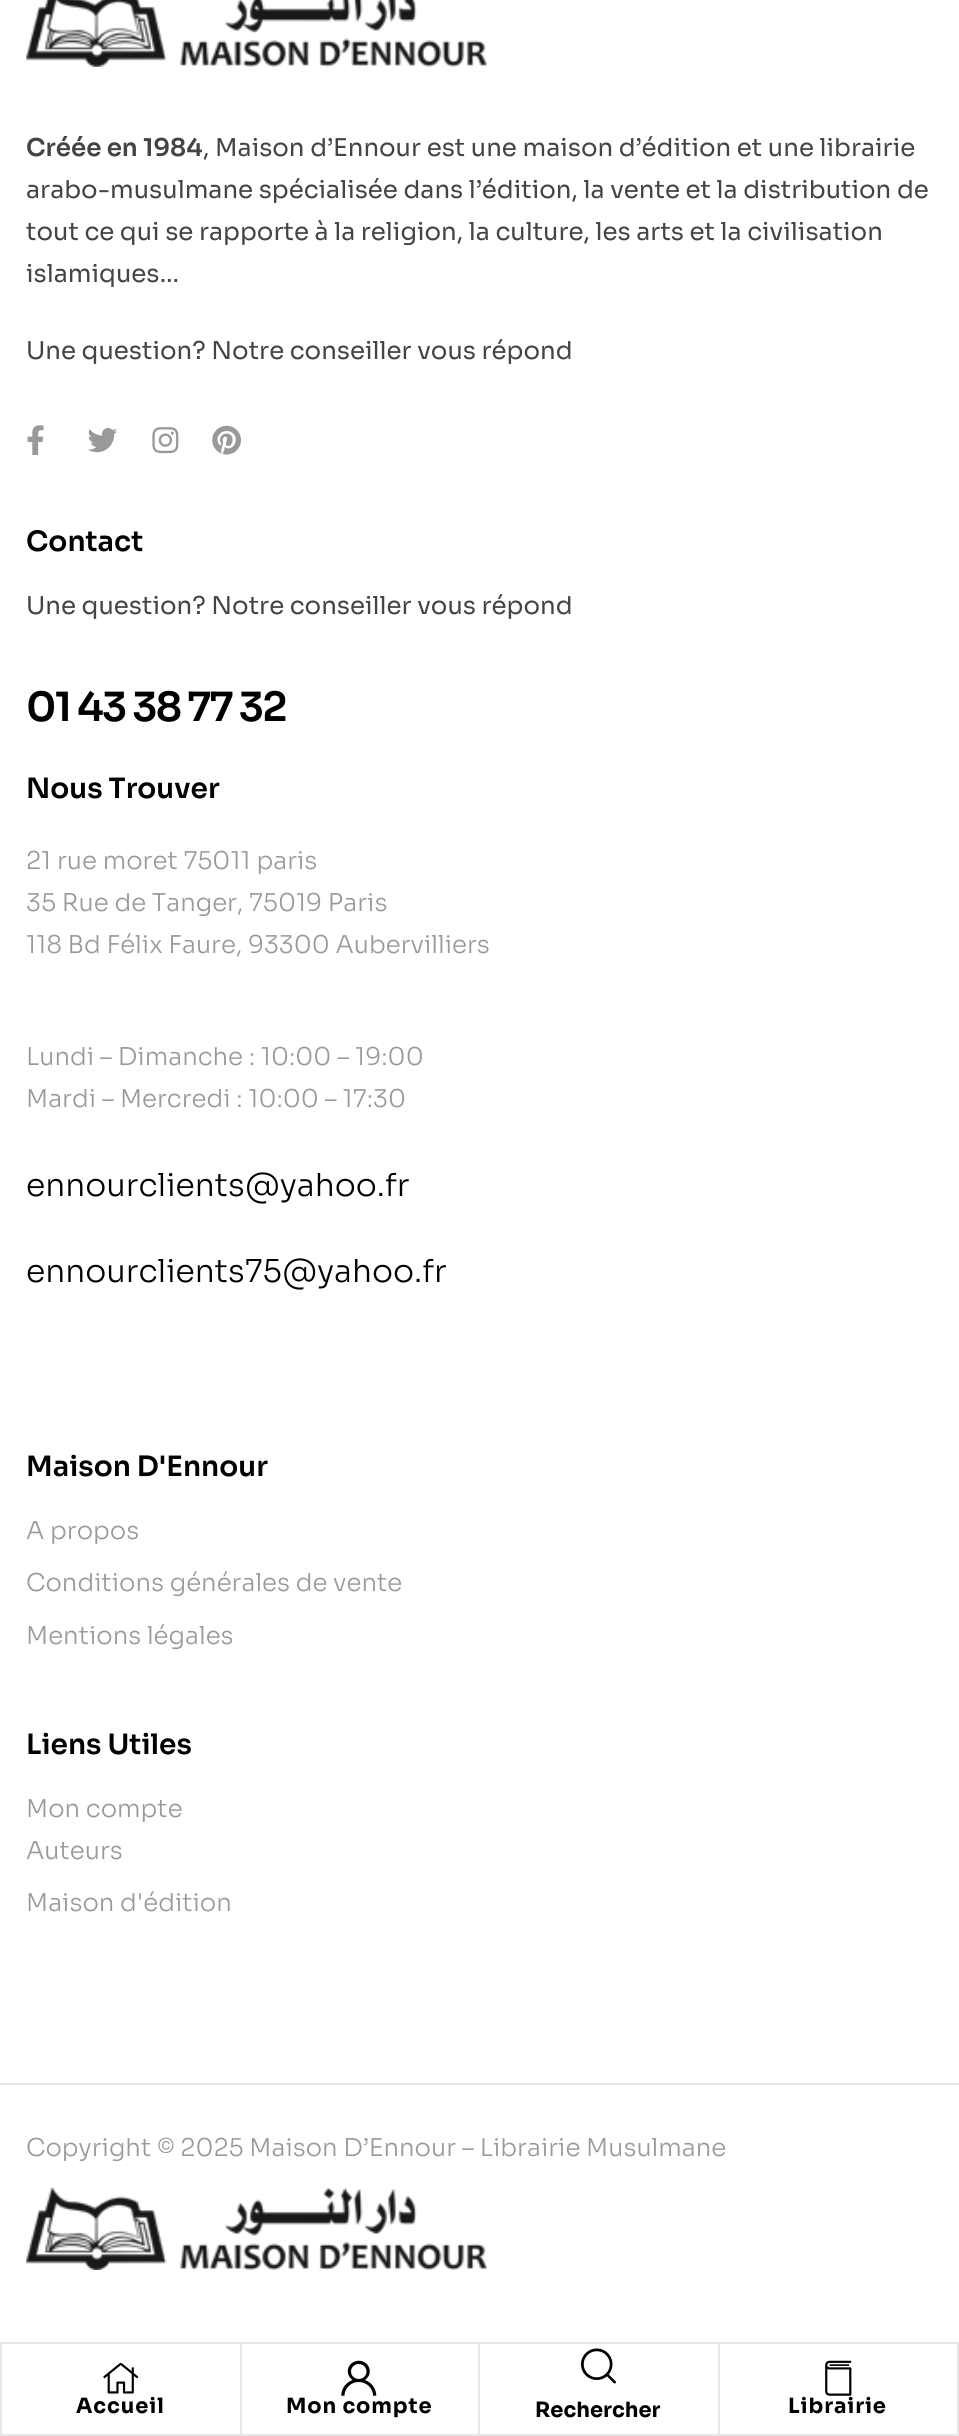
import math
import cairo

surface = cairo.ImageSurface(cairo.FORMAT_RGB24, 959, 2436)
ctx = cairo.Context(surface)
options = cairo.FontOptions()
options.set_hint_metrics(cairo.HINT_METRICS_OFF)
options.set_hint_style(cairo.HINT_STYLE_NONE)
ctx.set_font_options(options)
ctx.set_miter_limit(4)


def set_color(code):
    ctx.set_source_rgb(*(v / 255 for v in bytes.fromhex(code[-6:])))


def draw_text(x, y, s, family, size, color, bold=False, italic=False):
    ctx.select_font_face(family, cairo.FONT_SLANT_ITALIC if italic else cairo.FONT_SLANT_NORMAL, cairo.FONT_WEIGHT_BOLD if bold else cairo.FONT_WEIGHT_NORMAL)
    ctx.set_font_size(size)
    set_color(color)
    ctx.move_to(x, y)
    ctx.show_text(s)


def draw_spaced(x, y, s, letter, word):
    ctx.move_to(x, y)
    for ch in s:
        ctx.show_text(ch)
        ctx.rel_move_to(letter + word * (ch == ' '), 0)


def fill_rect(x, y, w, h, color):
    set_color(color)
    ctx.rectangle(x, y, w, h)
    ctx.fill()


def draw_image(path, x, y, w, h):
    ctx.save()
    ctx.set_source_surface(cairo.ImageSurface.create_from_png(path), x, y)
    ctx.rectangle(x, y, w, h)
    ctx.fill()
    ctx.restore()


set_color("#ffffff")
ctx.paint()
draw_image("assets/img1.png", 26, 0, 461, 67)
draw_text(26, 156, "Créée en 1984", "Sora SemiBold", 24.5, "#444444")
draw_text(203, 156, ", Maison d’Ennour est une maison d’édition et une librairie", "Sora", 24.5, "#444444")
draw_text(26, 198, "arabo-musulmane spécialisée dans l’édition, la vente et la distribution de", "Sora", 24.5, "#444444")
draw_text(26, 240, "tout ce qui se rapporte à la religion, la culture, les arts et la civilisation", "Sora", 24.5, "#444444")
draw_text(26, 282, "islamiques…", "Sora", 24.5, "#444444")
draw_text(26, 359, "Une question? Notre conseiller vous répond", "Sora", 24.5, "#444444")
draw_image("assets/img2.png", 27, 425, 17, 30)
draw_image("assets/img3.png", 88, 428, 29, 25)
draw_image("assets/img4.png", 152, 427, 27, 27)
draw_image("assets/img5.png", 212, 425, 29, 30)
draw_text(26, 551, "Contact", "Sora SemiBold", 28, "#000000")
draw_text(26, 614, "Une question? Notre conseiller vous répond", "Sora", 24.5, "#444444")
ctx.select_font_face("Sora SemiBold")
ctx.set_font_size(40.25)
set_color("#000000")
draw_spaced(26, 721, "01 43 38 77 32", -1.75, 0)
draw_text(26, 798, "Nous Trouver", "Sora SemiBold", 28, "#000000")
draw_text(26, 869, "21 rue moret 75011 paris", "Sora Light", 24.5, "#999999")
draw_text(26, 911, "35 Rue de Tanger, 75019 Paris", "Sora Light", 24.5, "#999999")
draw_text(26, 953, "118 Bd Félix Faure, 93300 Aubervilliers", "Sora Light", 24.5, "#999999")
draw_text(26, 1065, "Lundi – Dimanche : 10:00 – 19:00", "Sora Light", 24.5, "#999999")
draw_text(26, 1107, "Mardi – Mercredi : 10:00 – 17:30", "Sora Light", 24.5, "#999999")
draw_text(26, 1196, "ennourclients@yahoo.fr", "Sora Light", 31.5, "#000000")
draw_text(26, 1282, "ennourclients75@yahoo.fr", "Sora Light", 31.5, "#000000")
draw_text(26, 1476, "Maison D'Ennour", "Sora SemiBold", 28, "#000000")
draw_text(26, 1539, "A propos", "Sora Light", 24.5, "#999999")
draw_text(26, 1591, "Conditions générales de vente", "Sora Light", 24.5, "#999999")
draw_text(26, 1644, "Mentions légales", "Sora Light", 24.5, "#999999")
draw_text(26, 1754, "Liens Utiles", "Sora SemiBold", 28, "#000000")
draw_text(26, 1817, "Mon compte", "Sora Light", 24.5, "#999999")
draw_text(26, 1859, "Auteurs", "Sora Light", 24.5, "#999999")
draw_text(26, 1911, "Maison d'édition", "Sora Light", 24.5, "#999999")
fill_rect(0, 2083, 959, 2, "#e6e6e6")
draw_text(26, 2156, "Copyright © 2025 Maison D’Ennour – Librairie Musulmane", "Sora Light", 24.5, "#999999")
draw_image("assets/img6.png", 26, 2187, 461, 83)
ctx.rectangle(1, 2343, 957, 92)
set_color("#e6e6e6")
ctx.stroke()
fill_rect(240, 2343, 2, 91, "#e6e6e6")
draw_image("assets/img7.png", 103, 2363, 36, 31)
ctx.select_font_face("Sora", cairo.FONT_SLANT_NORMAL, cairo.FONT_WEIGHT_BOLD)
ctx.set_font_size(21)
set_color("#000000")
draw_spaced(76, 2413, "Accueil", 0.9, 0)
fill_rect(478, 2343, 2, 91, "#e6e6e6")
draw_image("assets/img8.png", 341, 2360, 36, 36)
set_color("#000000")
draw_spaced(286, 2413, "Mon compte", 0.9, 0)
fill_rect(718, 2343, 2, 91, "#e6e6e6")
draw_image("assets/img9.png", 581, 2348, 35, 36)
draw_text(535, 2417, "Rechercher", "Sora", 21, "#000000", bold=True)
draw_image("assets/img10.png", 825, 2360, 27, 36)
draw_spaced(788, 2413, "Librairie", 0.9, 0)
surface.write_to_png("output.png")
